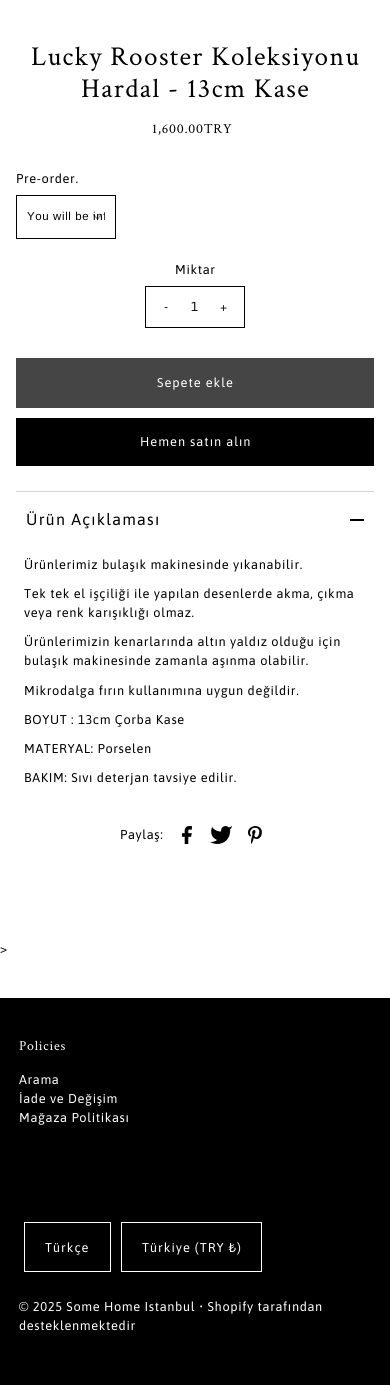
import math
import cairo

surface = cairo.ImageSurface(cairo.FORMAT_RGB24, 390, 1385)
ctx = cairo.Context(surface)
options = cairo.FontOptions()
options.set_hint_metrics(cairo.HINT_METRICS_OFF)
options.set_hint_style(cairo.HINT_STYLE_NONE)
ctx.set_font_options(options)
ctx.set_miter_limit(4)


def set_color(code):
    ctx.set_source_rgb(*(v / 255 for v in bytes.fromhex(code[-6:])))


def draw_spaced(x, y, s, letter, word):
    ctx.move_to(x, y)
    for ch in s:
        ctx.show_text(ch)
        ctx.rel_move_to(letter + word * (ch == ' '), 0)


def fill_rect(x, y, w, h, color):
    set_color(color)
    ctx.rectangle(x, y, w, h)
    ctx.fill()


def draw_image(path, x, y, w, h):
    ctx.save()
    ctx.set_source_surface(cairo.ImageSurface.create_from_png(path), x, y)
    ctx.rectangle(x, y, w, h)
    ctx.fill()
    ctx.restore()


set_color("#ffffff")
ctx.paint()
ctx.select_font_face("Crimson Text")
ctx.set_font_size(27.25)
set_color("#000000")
draw_spaced(31, 65, "Lucky Rooster Koleksiyonu", 1.35, 0)
draw_spaced(81, 97, "Hardal - 13cm Kase", 1.35, 0)
ctx.set_font_size(13.75)
draw_spaced(152, 133, "1,600.00TRY", 0.75, 0)
ctx.select_font_face("Asap")
ctx.set_font_size(12.75)
draw_spaced(16, 183, "Pre-order.", 0.65, 0)
draw_image("assets/img1.png", 93, 214, 9, 6)
ctx.rectangle(16.5, 195.5, 99, 43)
ctx.set_line_width(1)
ctx.stroke()
ctx.save()
ctx.rectangle(27, 199, 78, 35)
ctx.clip()
ctx.select_font_face("Liberation Sans")
ctx.set_font_size(11.5)
draw_spaced(27, 220, "You will be inf", 0.6, 0)
ctx.restore()
draw_spaced(175, 274, "Miktar", 0.65, 0)
ctx.rectangle(145.5, 286.5, 99, 41)
ctx.stroke()
draw_spaced(164, 311, "-", 1, 0)
ctx.set_font_size(13)
draw_spaced(191, 311, "1", 1, 0)
ctx.set_font_size(12.75)
draw_spaced(220, 311, "+", 1, 0)
fill_rect(16, 358, 358, 50, "#454545")
set_color("#ffffff")
draw_spaced(157, 387, "Sepete ekle", 1, 0)
fill_rect(16, 418, 358, 48, "#000000")
set_color("#ffffff")
draw_spaced(140, 446, "Hemen satın alın", 1, 0)
fill_rect(16, 491, 358, 1, "#d4d4d4")
ctx.set_font_size(16)
set_color("#000000")
draw_spaced(26, 525, "Ürün Açıklaması", 1.25, 0)
fill_rect(350, 519, 14, 2, "#000000")
ctx.set_font_size(12.75)
draw_spaced(24, 569, "Ürünlerimiz bulaşık makinesinde yıkanabilir.", 0.65, 0)
draw_spaced(24, 598, "Tek tek el işçiliği ile yapılan desenlerde akma, çıkma", 0.65, 0)
draw_spaced(24, 617, "veya renk karışıklığı olmaz.", 0.65, 0)
draw_spaced(24, 646, "Ürünlerimizin kenarlarında altın yaldız olduğu için", 0.65, 0)
draw_spaced(24, 665, "bulaşık makinesinde zamanla aşınma olabilir.", 0.65, 0)
draw_spaced(24, 695, "Mikrodalga fırın kullanımına uygun değildir.", 0.65, 0)
draw_spaced(24, 724, "BOYUT : 13cm Çorba Kase", 0.65, 0)
draw_spaced(24, 753, "MATERYAL: Porselen", 0.65, 0)
draw_spaced(24, 782, "BAKIM: Sıvı deterjan tavsiye edilir.", 0.65, 0)
draw_spaced(120, 839, "Paylaş:", 0.65, 0)
draw_image("assets/img2.png", 182, 826, 10, 18)
draw_image("assets/img3.png", 210, 826, 22, 18)
draw_image("assets/img4.png", 248, 826, 14, 18)
draw_spaced(0, 953, ">", 0.65, 0)
fill_rect(0, 998, 390, 387, "#000000")
ctx.select_font_face("Crimson Text")
ctx.set_font_size(13.75)
set_color("#ffffff")
draw_spaced(19, 1050, "Policies", 0.75, 0)
ctx.select_font_face("Asap")
ctx.set_font_size(12.75)
draw_spaced(19, 1084, "Arama", 0.65, 0)
draw_spaced(19, 1103, "İade ve Değişim", 0.65, 0)
draw_spaced(19, 1122, "Mağaza Politikası", 0.65, 0)
ctx.rectangle(24.5, 1222.5, 86, 49)
ctx.stroke()
draw_spaced(45, 1252, "Türkçe", 1, 0)
ctx.rectangle(121.5, 1222.5, 140, 49)
ctx.stroke()
draw_spaced(142, 1252, "Türkiye (TRY ₺)", 1, 0)
draw_spaced(19, 1311, "© 2025 Some Home Istanbul • Shopify tarafından", 0.65, 0)
draw_spaced(19, 1330, "desteklenmektedir", 0.65, 0)
surface.write_to_png("output.png")
